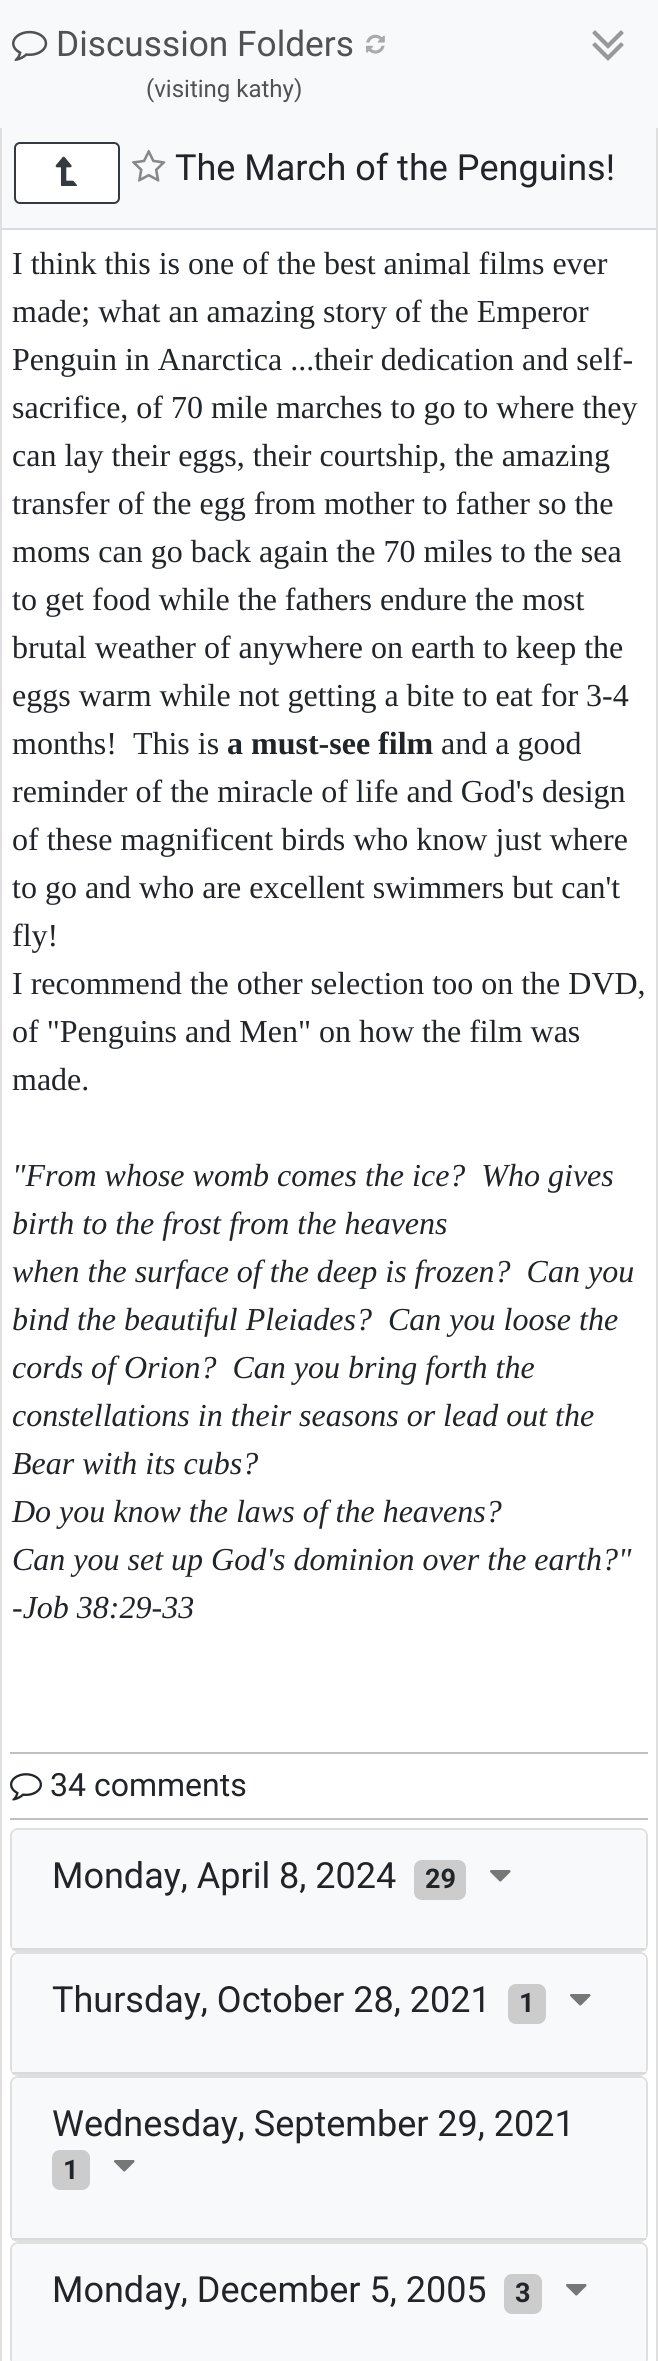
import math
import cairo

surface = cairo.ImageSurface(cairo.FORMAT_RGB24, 658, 2361)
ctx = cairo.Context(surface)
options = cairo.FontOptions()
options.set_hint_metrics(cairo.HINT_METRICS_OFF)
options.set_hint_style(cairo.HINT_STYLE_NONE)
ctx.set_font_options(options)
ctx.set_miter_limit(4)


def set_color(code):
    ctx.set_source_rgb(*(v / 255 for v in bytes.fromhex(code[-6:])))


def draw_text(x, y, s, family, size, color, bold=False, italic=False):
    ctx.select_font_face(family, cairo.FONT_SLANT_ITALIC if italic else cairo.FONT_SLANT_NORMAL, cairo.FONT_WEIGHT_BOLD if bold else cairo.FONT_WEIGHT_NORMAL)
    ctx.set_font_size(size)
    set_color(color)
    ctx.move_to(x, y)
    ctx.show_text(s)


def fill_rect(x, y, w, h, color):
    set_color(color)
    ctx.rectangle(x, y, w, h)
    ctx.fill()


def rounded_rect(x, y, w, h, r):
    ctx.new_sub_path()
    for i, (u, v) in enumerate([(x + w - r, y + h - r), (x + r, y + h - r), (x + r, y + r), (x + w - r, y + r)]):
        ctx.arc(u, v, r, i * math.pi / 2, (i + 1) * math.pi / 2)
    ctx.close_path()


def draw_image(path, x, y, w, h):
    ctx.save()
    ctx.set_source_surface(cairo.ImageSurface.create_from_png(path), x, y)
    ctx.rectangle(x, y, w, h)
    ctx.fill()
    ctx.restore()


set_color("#ffffff")
ctx.paint()
ctx.rectangle(1, 117, 656, 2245)
set_color("#dfdfdf")
ctx.stroke()
fill_rect(0, 0, 658, 128, "#f8f9fa")
draw_image("assets/img1.png", 12, 30, 36, 31)
draw_text(56, 56, "Discussion Folders", "Roboto", 35.25, "#525252")
draw_image("assets/img2.png", 366, 34, 19, 20)
draw_text(146, 97, "(visiting kathy)", "Roboto", 24, "#525252")
draw_image("assets/img3.png", 592, 30, 32, 31)
fill_rect(2, 128, 654, 100, "#f8f9fa")
fill_rect(2, 228, 654, 2, "#d9dadb")
set_color("#ffffff")
rounded_rect(15, 143, 104, 60, 5)
ctx.fill_preserve()
set_color("#343a40")
ctx.stroke()
draw_image("assets/img4.png", 55, 156, 22, 30)
draw_image("assets/img5.png", 132, 149, 34, 33)
draw_text(175, 180, "The March of the Penguins!", "Roboto", 36, "#212529")
draw_text(12, 274, "I think this is one of the best animal films ever", "Liberation Serif", 32, "#212529")
draw_text(12, 322, "made; what an amazing story of the Emperor", "Liberation Serif", 32, "#212529")
draw_text(12, 370, "Penguin in Anarctica ...their dedication and self-", "Liberation Serif", 32, "#212529")
draw_text(12, 418, "sacrifice, of 70 mile marches to go to where they", "Liberation Serif", 32, "#212529")
draw_text(12, 466, "can lay their eggs, their courtship, the amazing", "Liberation Serif", 32, "#212529")
draw_text(12, 514, "transfer of the egg from mother to father so the", "Liberation Serif", 32, "#212529")
draw_text(12, 562, "moms can go back again the 70 miles to the sea", "Liberation Serif", 32, "#212529")
draw_text(12, 610, "to get food while the fathers endure the most", "Liberation Serif", 32, "#212529")
draw_text(12, 658, "brutal weather of anywhere on earth to keep the", "Liberation Serif", 32, "#212529")
draw_text(12, 706, "eggs warm while not getting a bite to eat for 3-4", "Liberation Serif", 32, "#212529")
draw_text(12, 754, "months!  This is", "Liberation Serif", 32, "#212529")
draw_text(227, 754, "a must-see film", "Liberation Serif", 32, "#212529", bold=True)
draw_text(441, 754, "and a good", "Liberation Serif", 32, "#212529")
draw_text(12, 802, "reminder of the miracle of life and God's design", "Liberation Serif", 32, "#212529")
draw_text(12, 850, "of these magnificent birds who know just where", "Liberation Serif", 32, "#212529")
draw_text(12, 898, "to go and who are excellent swimmers but can't", "Liberation Serif", 32, "#212529")
draw_text(12, 946, "fly!", "Liberation Serif", 32, "#212529")
draw_text(12, 994, "I recommend the other selection too on the DVD,", "Liberation Serif", 32, "#212529")
draw_text(12, 1042, "of \"Penguins and Men\" on how the film was", "Liberation Serif", 32, "#212529")
draw_text(12, 1090, "made.", "Liberation Serif", 32, "#212529")
draw_text(12, 1186, "\"From whose womb comes the ice?  Who gives", "Liberation Serif", 32, "#212529", italic=True)
draw_text(12, 1234, "birth to the frost from the heavens", "Liberation Serif", 32, "#212529", italic=True)
draw_text(12, 1282, "when the surface of the deep is frozen?  Can you", "Liberation Serif", 32, "#212529", italic=True)
draw_text(12, 1330, "bind the beautiful Pleiades?  Can you loose the", "Liberation Serif", 32, "#212529", italic=True)
draw_text(12, 1378, "cords of Orion?  Can you bring forth the", "Liberation Serif", 32, "#212529", italic=True)
draw_text(12, 1426, "constellations in their seasons or lead out the", "Liberation Serif", 32, "#212529", italic=True)
draw_text(12, 1474, "Bear with its cubs?", "Liberation Serif", 32, "#212529", italic=True)
draw_text(12, 1522, "Do you know the laws of the heavens?", "Liberation Serif", 32, "#212529", italic=True)
draw_text(12, 1570, "Can you set up God's dominion over the earth?\"", "Liberation Serif", 32, "#212529", italic=True)
draw_text(12, 1618, "-Job 38:29-33", "Liberation Serif", 32, "#212529", italic=True)
fill_rect(10, 1752, 638, 2, "#c0c0c0")
fill_rect(10, 1818, 638, 2, "#c0c0c0")
draw_image("assets/img6.png", 10, 1773, 32, 28)
draw_text(50, 1796, "34 comments", "Roboto", 32, "#212529")
rounded_rect(11, 1829, 636, 122, 7)
set_color("#dfdfdf")
ctx.stroke()
set_color("#f8f9fa")
ctx.new_path()
ctx.move_to(18, 1830)
ctx.line_to(640, 1830)
ctx.curve_to(643.5, 1830, 646, 1832.5, 646, 1836)
ctx.line_to(646, 1950)
ctx.line_to(12, 1950)
ctx.line_to(12, 1836)
ctx.curve_to(12, 1832.5, 14.5, 1830, 18, 1830)
ctx.close_path()
ctx.fill()
fill_rect(12, 1948, 634, 2, "#d9dadb")
draw_text(52, 1888, "Monday, April 8, 2024", "Roboto", 36, "#212529")
set_color("#cccccc")
rounded_rect(414, 1860, 52, 40, 8)
ctx.fill()
draw_text(425, 1888, "29", "Roboto", 27, "#212529", bold=True)
draw_image("assets/img7.png", 490, 1870, 21, 12)
rounded_rect(11, 1953, 636, 122, 7)
set_color("#dfdfdf")
ctx.stroke()
set_color("#f8f9fa")
ctx.new_path()
ctx.move_to(18, 1954)
ctx.line_to(640, 1954)
ctx.curve_to(643.5, 1954, 646, 1956.5, 646, 1960)
ctx.line_to(646, 2074)
ctx.line_to(12, 2074)
ctx.line_to(12, 1960)
ctx.curve_to(12, 1956.5, 14.5, 1954, 18, 1954)
ctx.close_path()
ctx.fill()
fill_rect(12, 2072, 634, 2, "#d9dadb")
draw_text(52, 2012, "Thursday, October 28, 2021", "Roboto", 36, "#212529")
set_color("#cccccc")
rounded_rect(508, 1984, 38, 40, 8)
ctx.fill()
draw_text(519, 2012, "1", "Roboto", 27, "#212529", bold=True)
draw_image("assets/img7.png", 570, 1994, 21, 12)
rounded_rect(11, 2077, 636, 164, 7)
set_color("#dfdfdf")
ctx.stroke()
set_color("#f8f9fa")
ctx.new_path()
ctx.move_to(18, 2078)
ctx.line_to(640, 2078)
ctx.curve_to(643.5, 2078, 646, 2080.5, 646, 2084)
ctx.line_to(646, 2240)
ctx.line_to(12, 2240)
ctx.line_to(12, 2084)
ctx.curve_to(12, 2080.5, 14.5, 2078, 18, 2078)
ctx.close_path()
ctx.fill()
fill_rect(12, 2238, 634, 2, "#d9dadb")
draw_text(52, 2136, "Wednesday, September 29, 2021", "Roboto", 36, "#212529")
set_color("#cccccc")
rounded_rect(52, 2150, 38, 40, 8)
ctx.fill()
draw_text(63, 2179, "1", "Roboto", 27, "#212529", bold=True)
draw_image("assets/img7.png", 114, 2160, 21, 12)
rounded_rect(11, 2243, 636, 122, 7)
set_color("#dfdfdf")
ctx.stroke()
set_color("#f8f9fa")
ctx.new_path()
ctx.move_to(18, 2244)
ctx.line_to(640, 2244)
ctx.curve_to(643.5, 2244, 646, 2246.5, 646, 2250)
ctx.line_to(646, 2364)
ctx.line_to(12, 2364)
ctx.line_to(12, 2250)
ctx.curve_to(12, 2246.5, 14.5, 2244, 18, 2244)
ctx.close_path()
ctx.fill()
draw_text(52, 2302, "Monday, December 5, 2005", "Roboto", 36, "#212529")
set_color("#cccccc")
rounded_rect(504, 2274, 38, 40, 8)
ctx.fill()
draw_text(515, 2302, "3", "Roboto", 27, "#212529", bold=True)
draw_image("assets/img7.png", 566, 2284, 21, 12)
surface.write_to_png("output.png")
